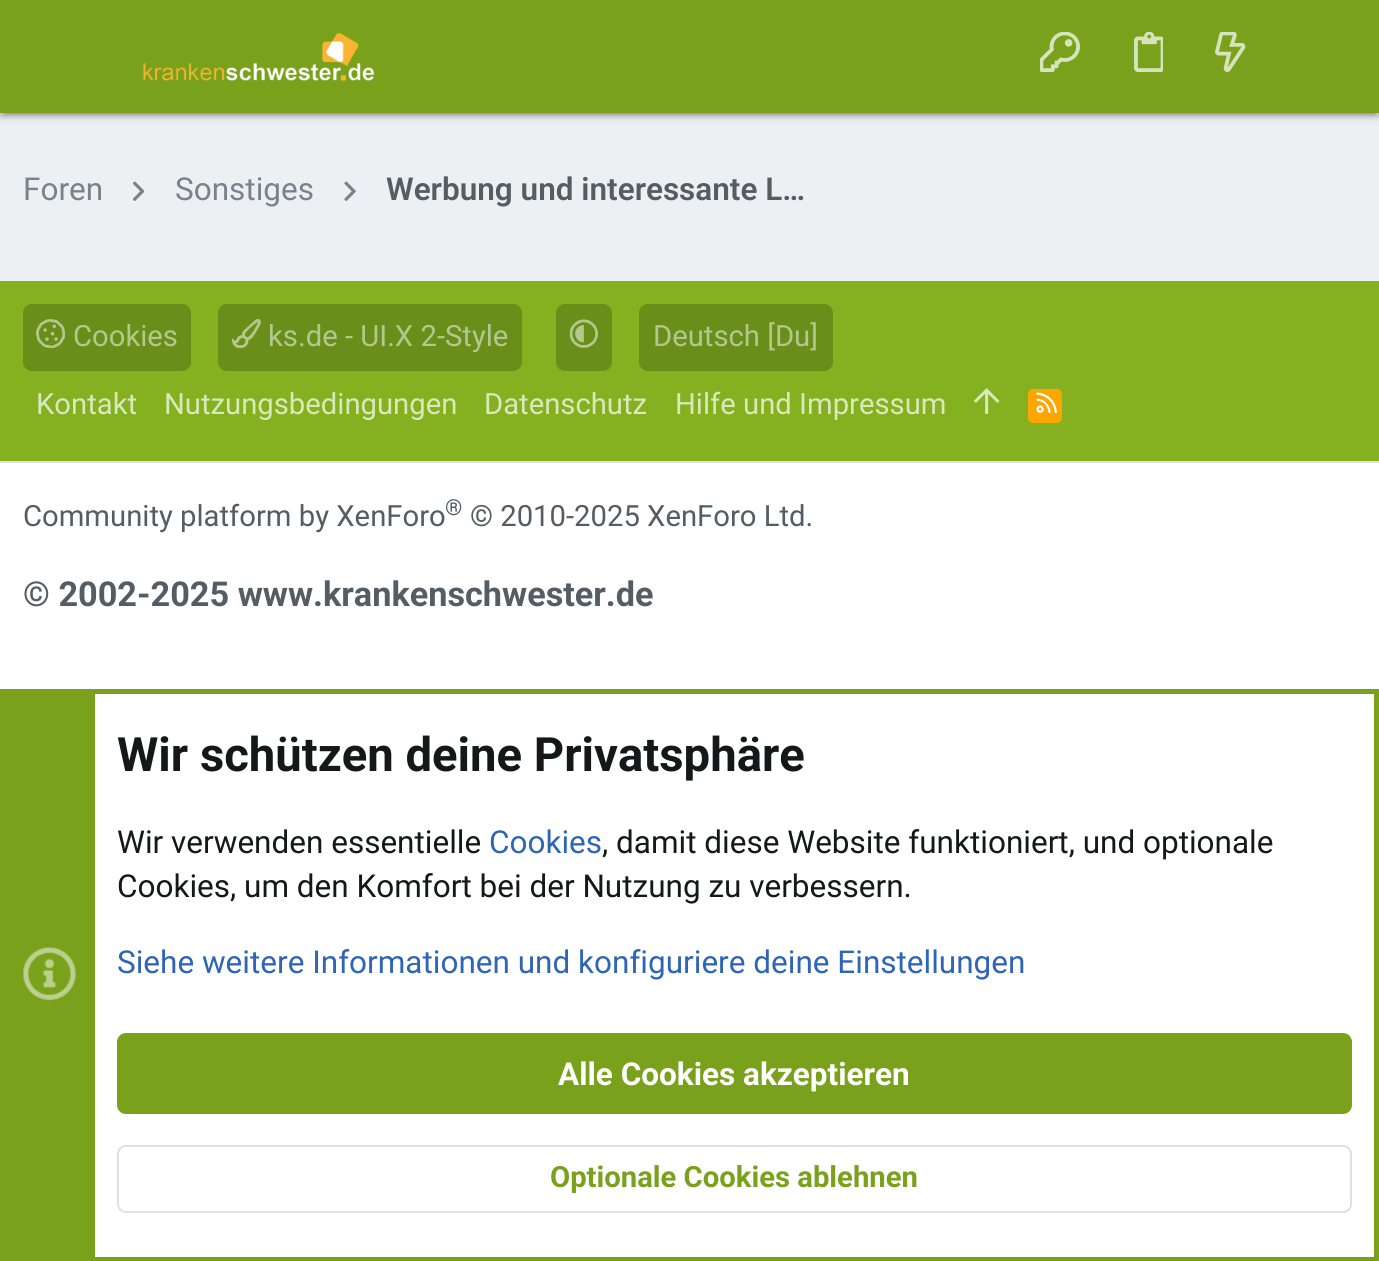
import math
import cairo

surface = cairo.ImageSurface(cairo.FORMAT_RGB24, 1379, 1261)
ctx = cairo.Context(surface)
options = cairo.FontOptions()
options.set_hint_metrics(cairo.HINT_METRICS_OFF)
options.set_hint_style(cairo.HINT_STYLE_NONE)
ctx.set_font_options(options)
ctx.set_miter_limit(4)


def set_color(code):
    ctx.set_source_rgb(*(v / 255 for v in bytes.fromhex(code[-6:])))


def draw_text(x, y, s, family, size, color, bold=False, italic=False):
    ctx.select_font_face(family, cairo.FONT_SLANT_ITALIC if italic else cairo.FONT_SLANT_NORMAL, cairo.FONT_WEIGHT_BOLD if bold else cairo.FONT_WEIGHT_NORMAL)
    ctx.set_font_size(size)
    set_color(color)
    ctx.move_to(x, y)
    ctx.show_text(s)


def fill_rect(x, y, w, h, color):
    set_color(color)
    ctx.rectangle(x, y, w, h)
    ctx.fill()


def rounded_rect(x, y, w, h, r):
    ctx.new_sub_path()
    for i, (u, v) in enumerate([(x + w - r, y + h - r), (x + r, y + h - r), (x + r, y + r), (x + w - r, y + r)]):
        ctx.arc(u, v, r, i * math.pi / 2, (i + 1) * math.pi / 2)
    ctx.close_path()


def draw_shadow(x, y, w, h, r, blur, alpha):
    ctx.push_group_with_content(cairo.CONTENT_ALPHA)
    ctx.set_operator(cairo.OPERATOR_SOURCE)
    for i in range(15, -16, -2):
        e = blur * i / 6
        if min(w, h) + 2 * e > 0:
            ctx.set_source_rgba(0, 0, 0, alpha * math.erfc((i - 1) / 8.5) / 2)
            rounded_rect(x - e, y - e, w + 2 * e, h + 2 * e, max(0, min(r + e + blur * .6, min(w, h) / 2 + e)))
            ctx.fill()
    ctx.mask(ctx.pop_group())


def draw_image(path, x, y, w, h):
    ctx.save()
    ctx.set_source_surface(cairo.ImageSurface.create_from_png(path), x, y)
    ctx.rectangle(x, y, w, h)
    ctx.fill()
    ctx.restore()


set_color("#edf0f2")
ctx.paint()
set_color("#000000")
draw_shadow(0, 2, 1379, 113, 0, 5.5, 0.2)
draw_shadow(5, 11, 1370, 104, 0, 1, 0.12)
draw_shadow(0, 5, 1379, 112, 0, 2, 0.14)
fill_rect(0, 0, 1379, 113, "#79a11b")
draw_image("assets/img1.png", 143, 33, 232, 48)
draw_image("assets/img2.png", 1040, 32, 40, 40)
draw_image("assets/img3.png", 1134, 32, 29, 40)
draw_image("assets/img4.png", 1215, 32, 31, 40)
draw_text(23, 200, "Foren", "Roboto", 31.5, "#77828d")
draw_image("assets/img5.png", 133, 181, 11, 20)
draw_text(175, 200, "Sonstiges", "Roboto", 31.5, "#77828d")
draw_image("assets/img6.png", 344, 181, 12, 20)
draw_text(386, 200, "Werbung und interessante L…", "Roboto SemiBold", 31.5, "#545c64")
fill_rect(0, 281, 1379, 180, "#85b120")
set_color("#6a8e1a")
rounded_rect(23, 304, 168, 67, 9)
ctx.fill()
draw_image("assets/img7.png", 36, 319, 29, 29)
draw_text(73, 346, "Cookies", "Roboto", 29.25, "#b5c78d")
set_color("#6a8e1a")
rounded_rect(218, 304, 304, 67, 9)
ctx.fill()
draw_image("assets/img8.png", 232, 319, 29, 29)
draw_text(268, 346, "ks.de - UI.X 2-Style", "Roboto", 29.25, "#b5c78d")
set_color("#6a8e1a")
rounded_rect(556, 304, 56, 67, 9)
ctx.fill()
draw_image("assets/img9.png", 569, 319, 29, 29)
rounded_rect(639, 304, 194, 67, 9)
ctx.fill()
draw_text(653, 346, "Deutsch [Du]", "Roboto", 29.25, "#b5c78d")
draw_text(36, 414, "Kontakt", "Roboto", 29.25, "#dae8bc")
draw_text(164, 414, "Nutzungsbedingungen", "Roboto", 29.25, "#dae8bc")
draw_text(484, 414, "Datenschutz", "Roboto", 29.25, "#dae8bc")
draw_text(675, 414, "Hilfe und Impressum", "Roboto", 29.25, "#dae8bc")
draw_image("assets/img10.png", 974, 388, 26, 26)
set_color("#ffa500")
rounded_rect(1028, 389, 34, 34, 5)
ctx.fill()
draw_image("assets/img11.png", 1036, 392, 21, 21)
fill_rect(0, 463, 1379, 226, "#ffffff")
fill_rect(0, 461, 1379, 2, "#e0e0e0")
draw_text(23, 526, "Community platform by XenForo", "Roboto", 29.25, "#545c64")
draw_text(445, 515, "®", "Roboto", 22, "#545c64")
draw_text(470, 526, "© 2010-2025 XenForo Ltd.", "Roboto", 29.25, "#545c64")
draw_text(23, 606, "© 2002-2025 www.krankenschwester.de", "Roboto", 34.25, "#545c64", bold=True)
fill_rect(95, 694, 1279, 563, "#ffffff")
ctx.rectangle(2.5, 691.5, 1374, 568)
set_color("#79a11b")
ctx.set_line_width(5)
ctx.stroke()
fill_rect(5, 694, 90, 563, "#79a11b")
draw_image("assets/img12.png", 22, 946, 55, 55)
draw_text(117, 771, "Wir schützen deine Privatsphäre", "Roboto", 47.25, "#151719", bold=True)
draw_text(117, 853, "Wir verwenden essentielle", "Roboto", 31.5, "#151719")
draw_text(489, 853, "Cookies", "Roboto", 31.5, "#2f65b6")
draw_text(602, 853, ", damit diese Website funktioniert, und optionale", "Roboto", 31.5, "#151719")
draw_text(117, 897, "Cookies, um den Komfort bei der Nutzung zu verbessern.", "Roboto", 31.5, "#151719")
draw_text(117, 973, "Siehe weitere Informationen und konfiguriere deine Einstellungen", "Roboto", 31.5, "#2f65b6")
set_color("#79a11b")
rounded_rect(117, 1033, 1235, 81, 9)
ctx.fill()
draw_text(558, 1085, "Alle Cookies akzeptieren", "Roboto", 31.5, "#ffffff", bold=True)
rounded_rect(118, 1146, 1233, 66, 8)
set_color("#e0e0e0")
ctx.set_line_width(2)
ctx.stroke()
draw_text(550, 1187, "Optionale Cookies ablehnen", "Roboto", 29.25, "#79a11b", bold=True)
surface.write_to_png("output.png")
